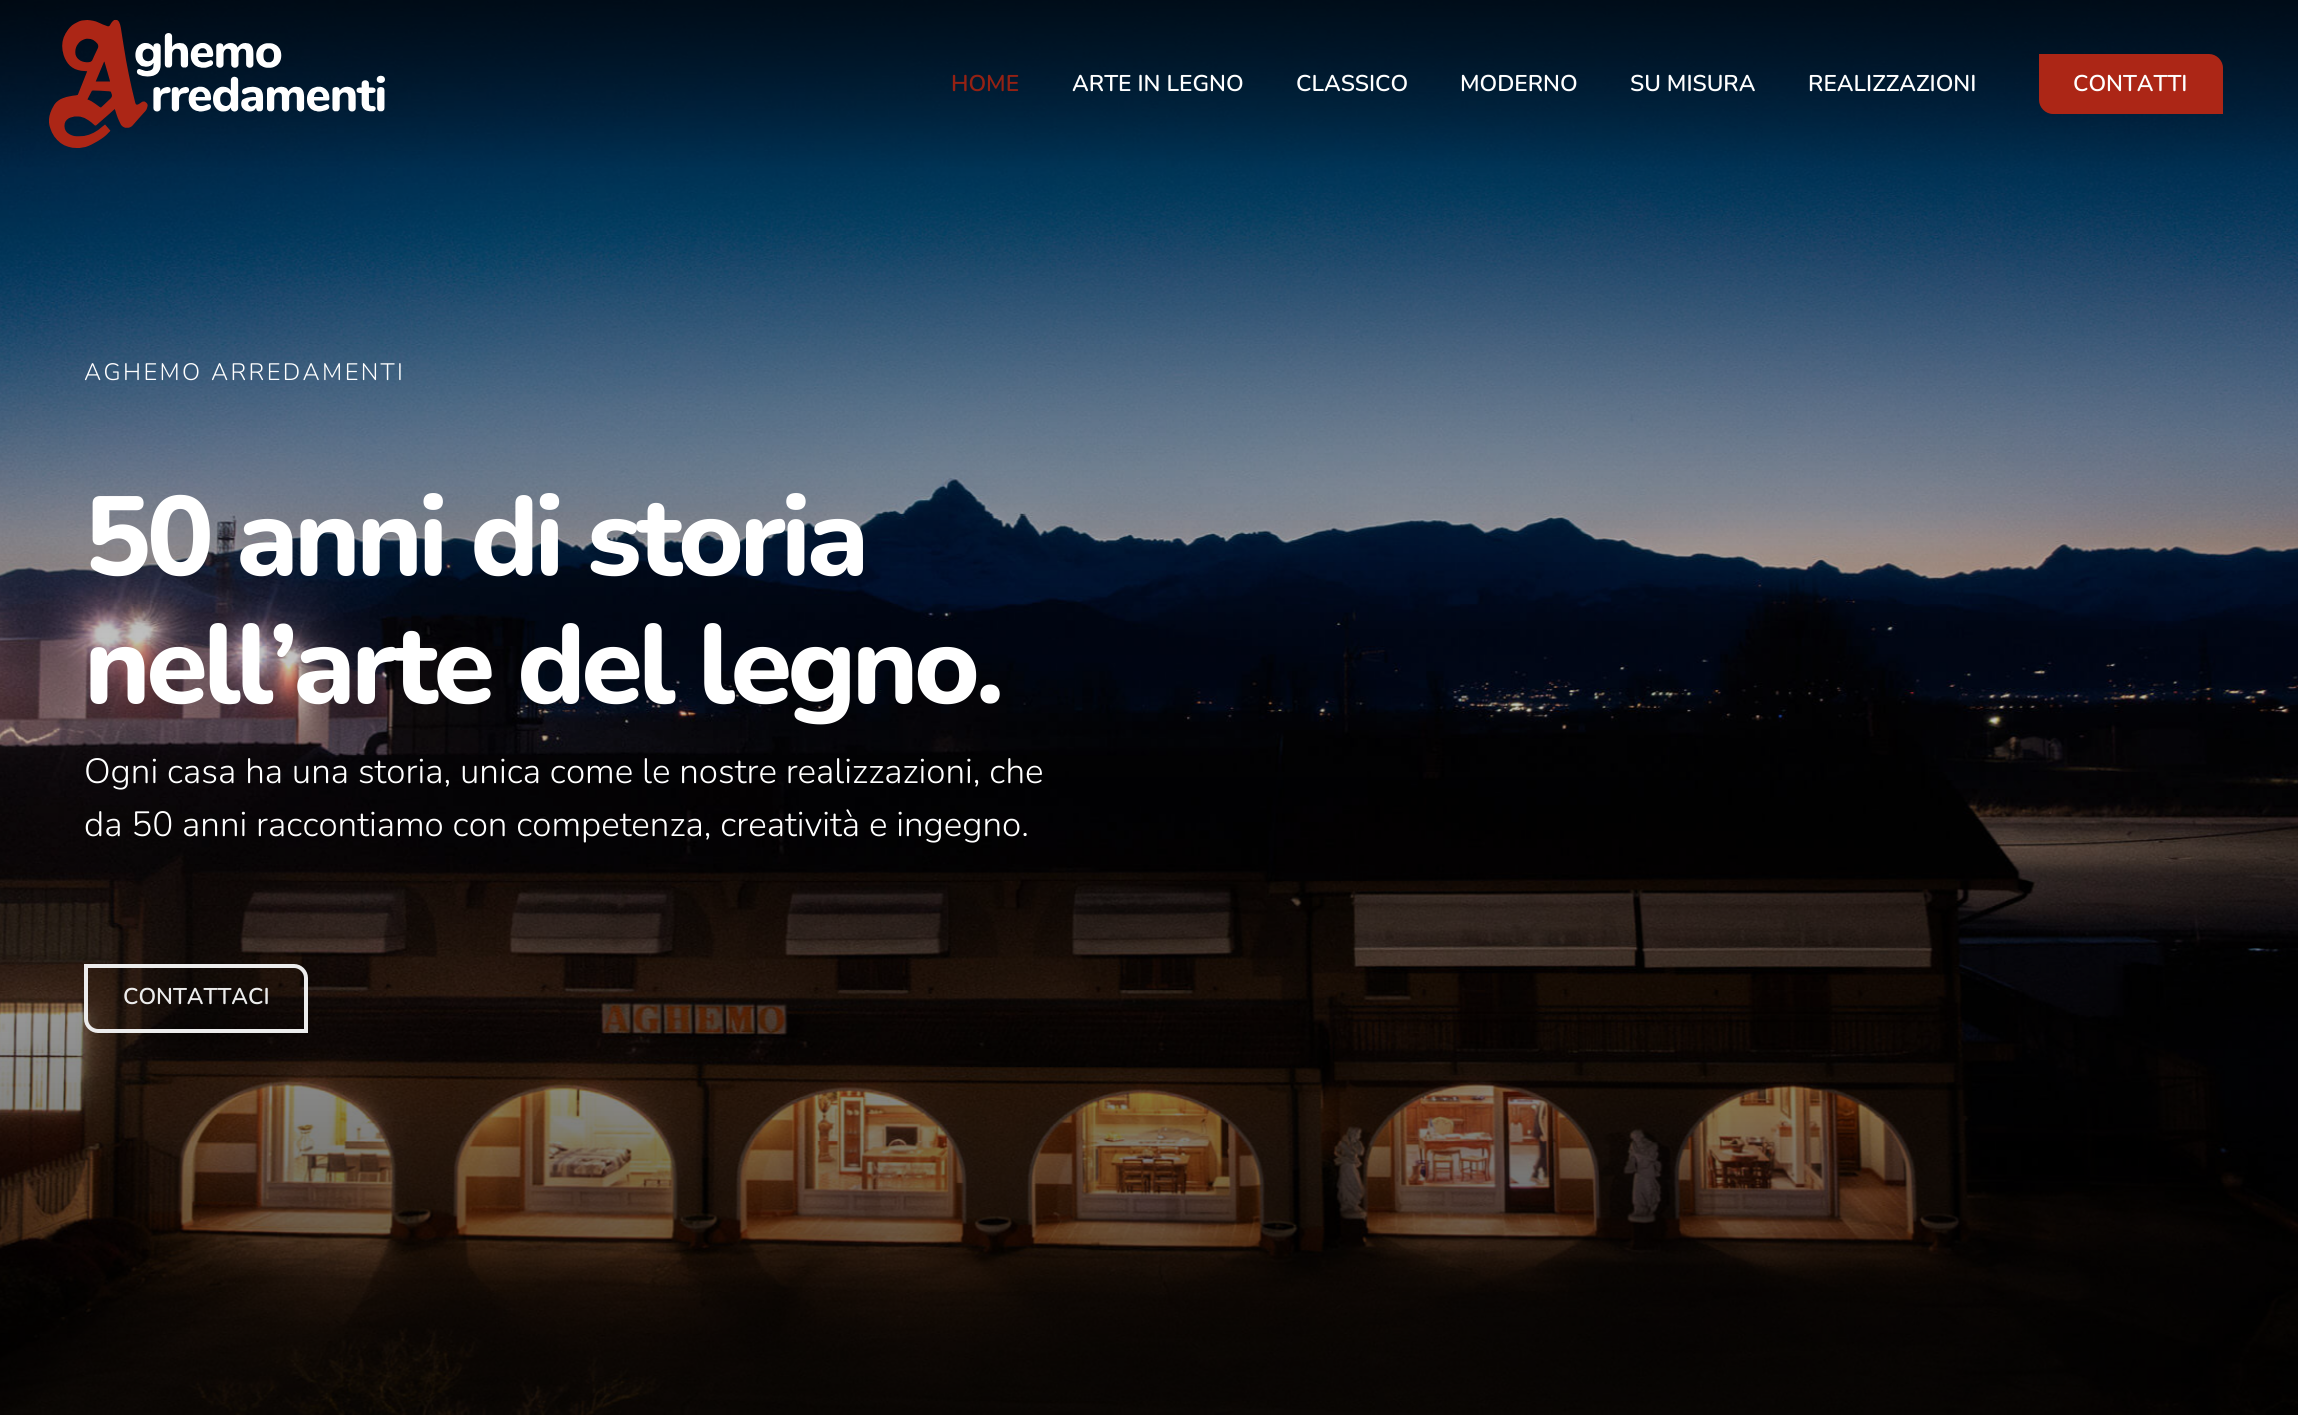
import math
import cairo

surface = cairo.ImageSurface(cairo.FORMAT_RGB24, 2298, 1415)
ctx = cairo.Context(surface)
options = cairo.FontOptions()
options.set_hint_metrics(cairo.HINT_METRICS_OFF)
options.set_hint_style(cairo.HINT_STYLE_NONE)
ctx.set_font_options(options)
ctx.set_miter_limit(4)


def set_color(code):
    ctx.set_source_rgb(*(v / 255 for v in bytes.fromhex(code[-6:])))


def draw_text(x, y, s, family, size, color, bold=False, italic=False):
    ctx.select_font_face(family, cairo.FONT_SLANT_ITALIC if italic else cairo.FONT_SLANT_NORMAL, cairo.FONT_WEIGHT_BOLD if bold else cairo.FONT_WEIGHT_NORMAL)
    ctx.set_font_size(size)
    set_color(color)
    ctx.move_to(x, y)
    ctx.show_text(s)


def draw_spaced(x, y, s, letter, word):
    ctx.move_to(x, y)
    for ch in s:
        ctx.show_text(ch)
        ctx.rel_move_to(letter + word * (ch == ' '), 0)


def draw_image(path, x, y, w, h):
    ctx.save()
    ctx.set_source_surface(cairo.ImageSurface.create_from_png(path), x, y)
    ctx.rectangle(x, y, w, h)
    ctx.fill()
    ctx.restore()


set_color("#ffffff")
ctx.paint()
draw_image("assets/img2.png", 0, 0, 2298, 1415)
draw_image("assets/img1.png", 49, 19, 336, 129)
draw_text(951, 91, "HOME", "Nunito SemiBold", 22.75, "#952113")
draw_text(1072, 91, "ARTE IN LEGNO", "Nunito SemiBold", 22.75, "#ffffff")
draw_text(1296, 91, "CLASSICO", "Nunito SemiBold", 22.75, "#ffffff")
draw_text(1460, 91, "MODERNO", "Nunito SemiBold", 22.75, "#ffffff")
draw_text(1630, 91, "SU MISURA", "Nunito SemiBold", 22.75, "#ffffff")
draw_text(1808, 91, "REALIZZAZIONI", "Nunito SemiBold", 22.75, "#ffffff")
set_color("#ac2616")
ctx.new_path()
ctx.move_to(2039, 54)
ctx.line_to(2209, 54)
ctx.curve_to(2216.5, 54, 2223, 60.5, 2223, 68)
ctx.line_to(2223, 114)
ctx.line_to(2053, 114)
ctx.curve_to(2045.5, 114, 2039, 107.5, 2039, 100)
ctx.close_path()
ctx.fill()
draw_text(2073, 91, "CONTATTI", "Nunito SemiBold", 22.75, "#ffffff")
ctx.select_font_face("Nunito Light")
ctx.set_font_size(23.75)
draw_spaced(84, 380, "AGHEMO ARREDAMENTI", 2.4, 0)
ctx.select_font_face("Nunito ExtraBold")
ctx.set_font_size(112)
draw_spaced(84, 575, "50 anni di storia", -4.5, 0)
draw_spaced(84, 703, "nell’arte del legno.", -4.5, 0)
draw_text(84, 783, "Ogni casa ha una storia, unica come le nostre realizzazioni, che", "Nunito Light", 35, "#ffffff")
draw_text(84, 836, "da 50 anni raccontiamo con competenza, creatività e ingegno.", "Nunito Light", 35, "#ffffff")
ctx.new_path()
ctx.move_to(86, 966)
ctx.line_to(294, 966)
ctx.curve_to(300.5, 966, 306, 971.5, 306, 978)
ctx.line_to(306, 1031)
ctx.line_to(98, 1031)
ctx.curve_to(91.5, 1031, 86, 1025.5, 86, 1019)
ctx.close_path()
set_color("#ececec")
ctx.set_line_width(4)
ctx.stroke()
draw_text(123, 1004, "CONTATTACI", "Nunito SemiBold", 22.75, "#ececec")
surface.write_to_png("output.png")
